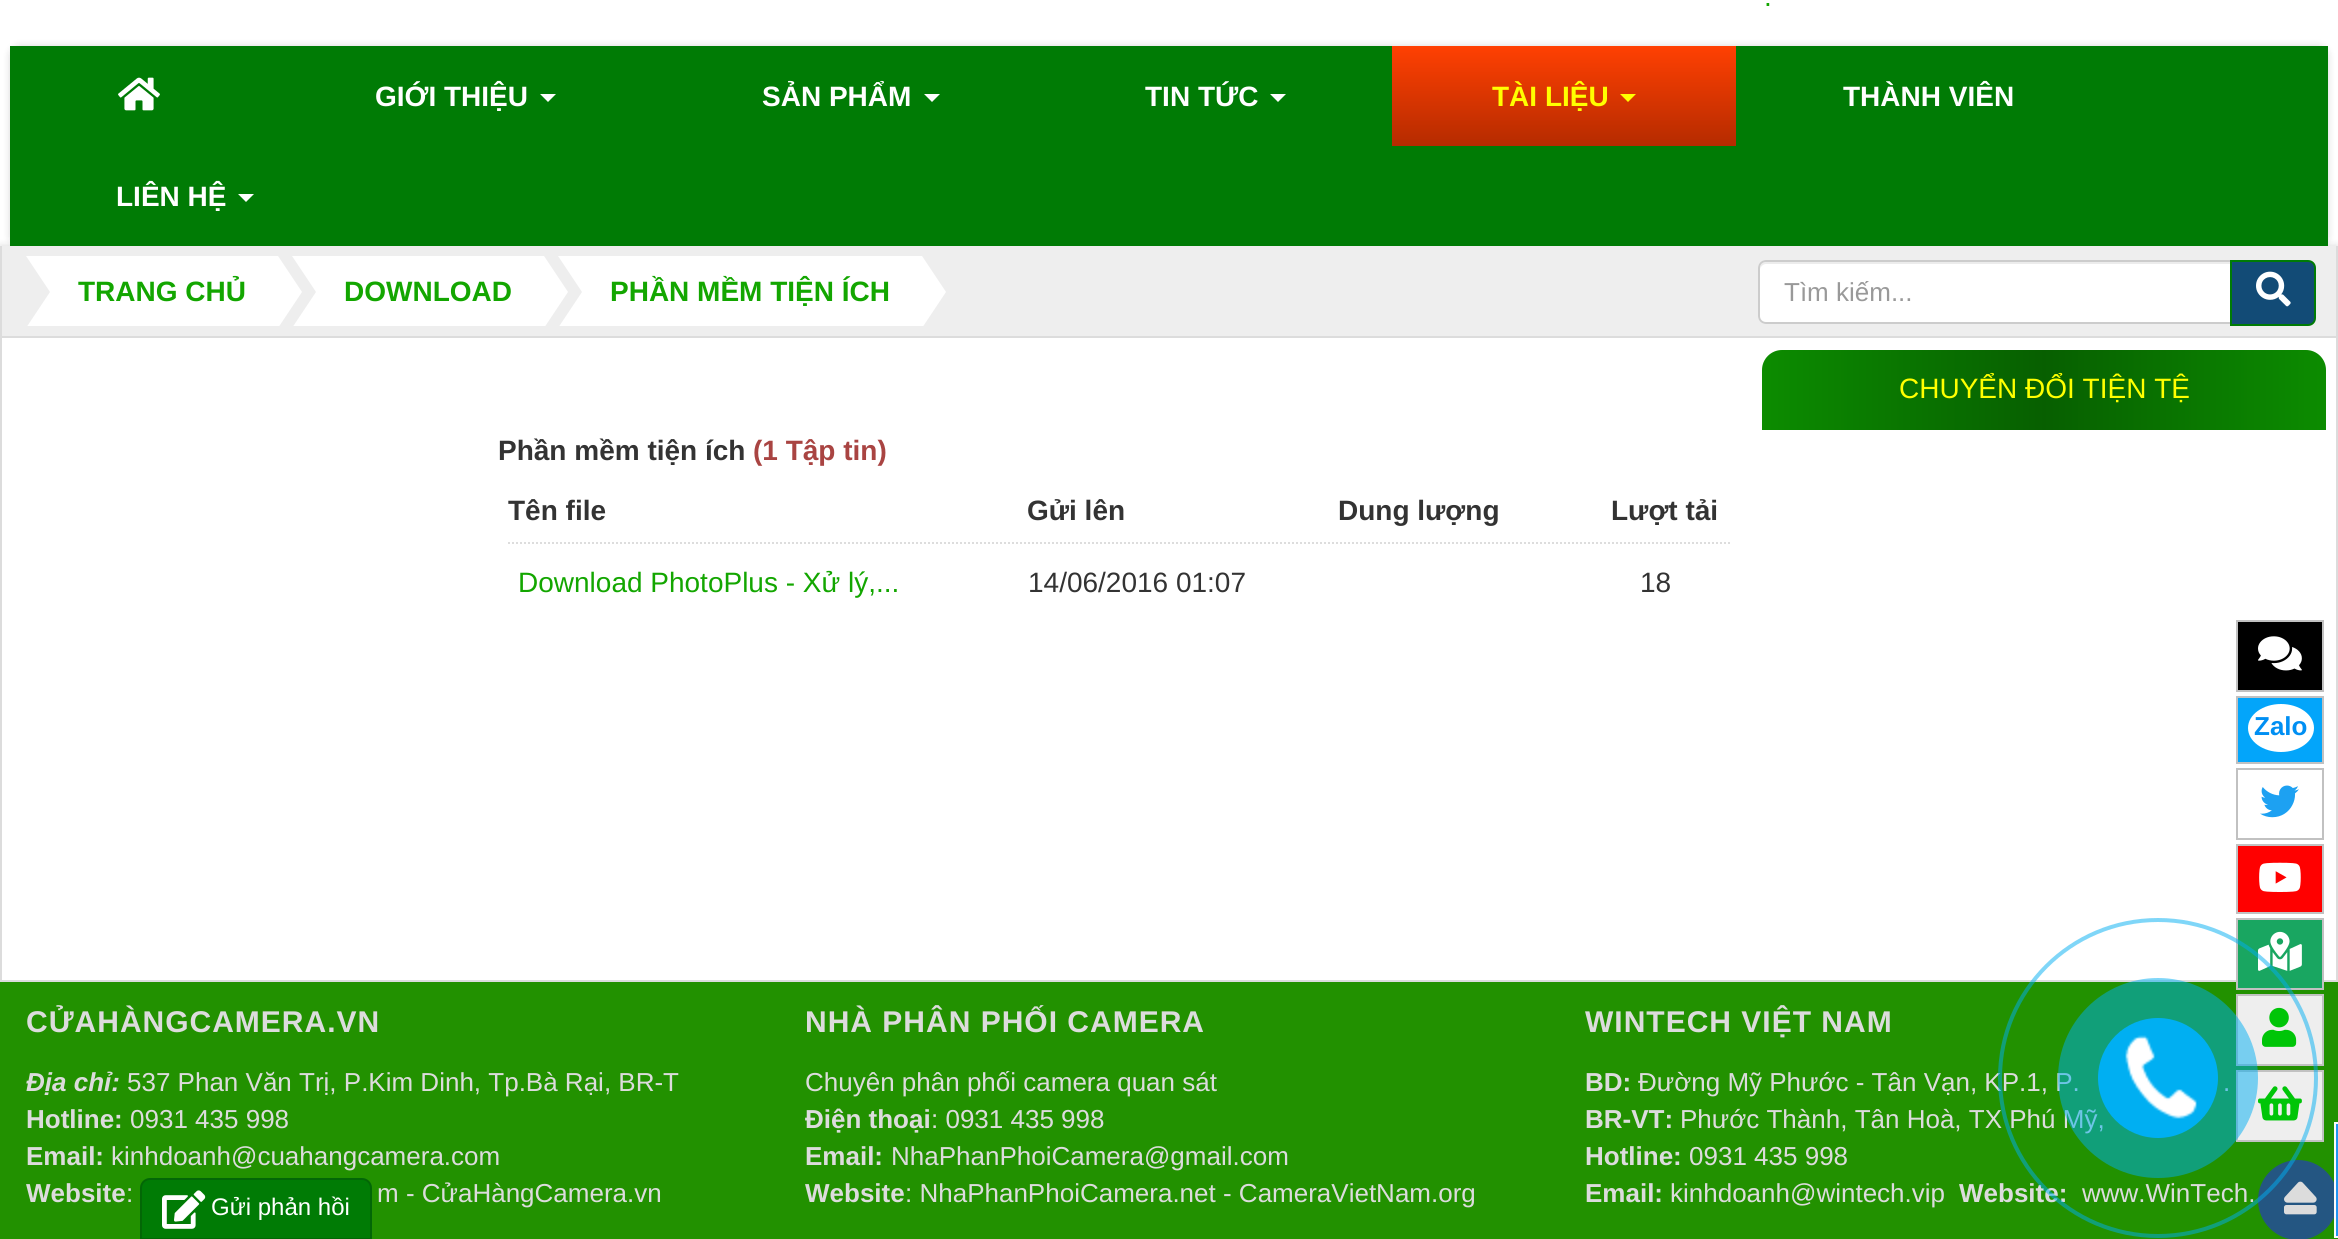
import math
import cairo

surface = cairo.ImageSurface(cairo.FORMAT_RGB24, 2338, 1239)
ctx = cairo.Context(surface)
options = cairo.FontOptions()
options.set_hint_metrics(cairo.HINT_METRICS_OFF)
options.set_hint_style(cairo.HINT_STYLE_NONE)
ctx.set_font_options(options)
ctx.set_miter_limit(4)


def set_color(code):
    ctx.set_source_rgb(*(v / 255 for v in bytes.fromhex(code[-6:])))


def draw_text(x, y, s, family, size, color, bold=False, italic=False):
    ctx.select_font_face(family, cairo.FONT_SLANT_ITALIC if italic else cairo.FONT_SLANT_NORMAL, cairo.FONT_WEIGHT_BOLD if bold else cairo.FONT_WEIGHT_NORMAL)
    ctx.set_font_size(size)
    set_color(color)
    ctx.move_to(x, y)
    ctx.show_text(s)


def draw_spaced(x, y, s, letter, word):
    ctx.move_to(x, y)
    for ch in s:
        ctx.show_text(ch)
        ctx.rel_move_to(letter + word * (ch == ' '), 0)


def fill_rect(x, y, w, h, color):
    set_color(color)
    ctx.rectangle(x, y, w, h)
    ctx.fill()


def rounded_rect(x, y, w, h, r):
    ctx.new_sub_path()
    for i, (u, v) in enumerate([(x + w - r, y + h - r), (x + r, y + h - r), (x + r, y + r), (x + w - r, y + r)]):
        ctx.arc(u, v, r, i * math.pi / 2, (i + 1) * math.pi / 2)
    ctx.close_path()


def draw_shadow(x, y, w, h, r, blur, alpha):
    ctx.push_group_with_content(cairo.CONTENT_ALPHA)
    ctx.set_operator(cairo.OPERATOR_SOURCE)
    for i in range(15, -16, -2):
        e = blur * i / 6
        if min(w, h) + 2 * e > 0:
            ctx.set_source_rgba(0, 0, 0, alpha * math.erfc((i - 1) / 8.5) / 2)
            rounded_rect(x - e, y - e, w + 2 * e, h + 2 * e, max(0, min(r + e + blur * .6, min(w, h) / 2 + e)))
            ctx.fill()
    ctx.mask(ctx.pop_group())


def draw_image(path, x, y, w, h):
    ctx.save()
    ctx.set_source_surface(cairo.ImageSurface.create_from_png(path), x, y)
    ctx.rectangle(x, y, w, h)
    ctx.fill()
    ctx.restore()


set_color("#ffffff")
ctx.paint()
draw_text(1764, 6, ".", "Liberation Sans", 28, "#13a600")
set_color("#000000")
draw_shadow(10, 46, 2318, 200, 10, 4, 0.15)
draw_shadow(0, 246, 2338, 734, 0, 4, 0.15)
fill_rect(10, 46, 2318, 200, "#007b05")
draw_image("assets/img1.png", 118, 77, 42, 34)
draw_text(375, 106, "GIỚI THIỆU", "Liberation Sans", 28, "#ffffff", bold=True)
ctx.new_path()
ctx.move_to(540, 94)
ctx.line_to(556, 94)
ctx.line_to(548, 102)
ctx.close_path()
ctx.fill()
draw_text(762, 106, "SẢN PHẨM", "Liberation Sans", 28, "#ffffff", bold=True)
ctx.new_path()
ctx.move_to(924, 94)
ctx.line_to(940, 94)
ctx.line_to(932, 102)
ctx.close_path()
ctx.fill()
draw_text(1145, 106, "TIN TỨC", "Liberation Sans", 28, "#ffffff", bold=True)
ctx.new_path()
ctx.move_to(1270, 94)
ctx.line_to(1286, 94)
ctx.line_to(1278, 102)
ctx.close_path()
ctx.fill()
gradient = cairo.LinearGradient(1564, 46, 1564, 146)
gradient.add_color_stop_rgba(0, 1, 0.251, 0.008, 1)
gradient.add_color_stop_rgba(1, 0.71, 0.169, 0, 1)
ctx.set_source(gradient)
ctx.rectangle(1392, 46, 344, 100)
ctx.fill()
draw_text(1492, 106, "TÀI LIỆU", "Liberation Sans", 28, "#ffff00", bold=True)
ctx.new_path()
ctx.move_to(1620, 94)
ctx.line_to(1636, 94)
ctx.line_to(1628, 102)
ctx.close_path()
ctx.fill()
draw_text(1843, 106, "THÀNH VIÊN", "Liberation Sans", 28, "#ffffff", bold=True)
draw_text(116, 206, "LIÊN HỆ", "Liberation Sans", 28, "#ffffff", bold=True)
ctx.new_path()
ctx.move_to(238, 194)
ctx.line_to(254, 194)
ctx.line_to(246, 202)
ctx.close_path()
ctx.fill()
fill_rect(2, 338, 2334, 642, "#ffffff")
fill_rect(2336, 246, 2, 734, "#dcdcdc")
fill_rect(0, 246, 2, 734, "#dcdcdc")
fill_rect(2, 336, 2334, 2, "#dcdcdc")
fill_rect(2, 246, 2334, 90, "#eeeeee")
fill_rect(50, 256, 224, 70, "#ffffff")
ctx.save()
ctx.rectangle(22, 256, 1716, 70)
ctx.clip()
ctx.new_path()
ctx.move_to(22, 250)
ctx.line_to(50, 250)
ctx.line_to(50, 292)
ctx.close_path()
ctx.fill()
ctx.new_path()
ctx.move_to(50, 334)
ctx.line_to(22, 334)
ctx.line_to(50, 292)
ctx.close_path()
ctx.fill()
ctx.restore()
draw_text(78, 301, "TRANG CHỦ", "Liberation Sans", 28, "#13a600", bold=True)
ctx.save()
ctx.rectangle(22, 256, 1716, 70)
ctx.clip()
set_color("#ffffff")
ctx.new_path()
ctx.move_to(274, 334)
ctx.line_to(274, 250)
ctx.line_to(302, 292)
ctx.close_path()
ctx.fill()
ctx.restore()
fill_rect(316, 256, 224, 70, "#ffffff")
ctx.save()
ctx.rectangle(22, 256, 1716, 70)
ctx.clip()
ctx.new_path()
ctx.move_to(288, 250)
ctx.line_to(316, 250)
ctx.line_to(316, 292)
ctx.close_path()
ctx.fill()
ctx.new_path()
ctx.move_to(316, 334)
ctx.line_to(288, 334)
ctx.line_to(316, 292)
ctx.close_path()
ctx.fill()
ctx.restore()
draw_text(344, 301, "DOWNLOAD", "Liberation Sans", 28, "#13a600", bold=True)
ctx.save()
ctx.rectangle(22, 256, 1716, 70)
ctx.clip()
set_color("#ffffff")
ctx.new_path()
ctx.move_to(540, 334)
ctx.line_to(540, 250)
ctx.line_to(568, 292)
ctx.close_path()
ctx.fill()
ctx.restore()
fill_rect(582, 256, 336, 70, "#ffffff")
ctx.save()
ctx.rectangle(22, 256, 1716, 70)
ctx.clip()
ctx.new_path()
ctx.move_to(554, 250)
ctx.line_to(582, 250)
ctx.line_to(582, 292)
ctx.close_path()
ctx.fill()
ctx.new_path()
ctx.move_to(582, 334)
ctx.line_to(554, 334)
ctx.line_to(582, 292)
ctx.close_path()
ctx.fill()
ctx.restore()
draw_text(610, 301, "PHẦN MỀM TIỆN ÍCH", "Liberation Sans", 28, "#13a600", bold=True)
ctx.save()
ctx.rectangle(22, 256, 1716, 70)
ctx.clip()
set_color("#ffffff")
ctx.new_path()
ctx.move_to(918, 334)
ctx.line_to(918, 250)
ctx.line_to(946, 292)
ctx.close_path()
ctx.fill()
ctx.restore()
set_color("#ffffff")
ctx.new_path()
ctx.move_to(1766, 260)
ctx.line_to(2232, 260)
ctx.line_to(2232, 324)
ctx.line_to(1766, 324)
ctx.curve_to(1761.5, 324, 1758, 320.5, 1758, 316)
ctx.line_to(1758, 268)
ctx.curve_to(1758, 263.5, 1761.5, 260, 1766, 260)
ctx.close_path()
ctx.fill()
set_color("#ececec")
ctx.new_path()
ctx.move_to(1766, 264)
ctx.line_to(2230, 264)
ctx.line_to(2230, 262)
ctx.line_to(1766, 262)
ctx.curve_to(1761, 262, 1760, 266, 1760, 270)
ctx.curve_to(1760, 267, 1763, 264, 1766, 264)
ctx.close_path()
ctx.fill()
ctx.new_path()
ctx.move_to(1766, 261)
ctx.line_to(2231, 261)
ctx.line_to(2231, 323)
ctx.line_to(1766, 323)
ctx.curve_to(1762, 323, 1759, 320, 1759, 316)
ctx.line_to(1759, 268)
ctx.curve_to(1759, 264, 1762, 261, 1766, 261)
ctx.close_path()
set_color("#cccccc")
ctx.stroke()
draw_text(1784, 301, "Tìm kiếm...", "Liberation Sans", 26, "#999999")
set_color("#124b76")
ctx.new_path()
ctx.move_to(2231, 261)
ctx.line_to(2308, 261)
ctx.curve_to(2312, 261, 2315, 264, 2315, 268)
ctx.line_to(2315, 318)
ctx.curve_to(2315, 322, 2312, 325, 2308, 325)
ctx.line_to(2231, 325)
ctx.close_path()
ctx.fill_preserve()
set_color("#007b05")
ctx.stroke()
draw_image("assets/img2.png", 2256, 271, 35, 36)
gradient = cairo.LinearGradient(1762, 390, 2326, 390)
gradient.add_color_stop_rgba(0, 0.047, 0.549, 0, 1)
gradient.add_color_stop_rgba(0.5, 0.027, 0.373, 0, 1)
gradient.add_color_stop_rgba(1, 0.047, 0.549, 0, 1)
ctx.set_source(gradient)
ctx.new_path()
ctx.move_to(1782, 350)
ctx.line_to(2306, 350)
ctx.curve_to(2317, 350, 2326, 359, 2326, 370)
ctx.line_to(2326, 432)
ctx.line_to(1762, 432)
ctx.line_to(1762, 370)
ctx.curve_to(1762, 359, 1771, 350, 1782, 350)
ctx.close_path()
ctx.fill()
fill_rect(1762, 430, 564, 2, "#ffffff")
draw_text(1899, 398, "CHUYỂN ĐỔI TIỆN TỆ", "Liberation Sans", 28, "#ffff00")
draw_text(498, 460, "Phần mềm tiện ích", "Liberation Sans", 28, "#333333", bold=True)
draw_text(753, 460, "(1 Tập tin)", "Liberation Sans", 28, "#a94442", bold=True)
draw_text(508, 520, "Tên file", "Liberation Sans", 28, "#333333", bold=True)
draw_text(1027, 520, "Gửi lên", "Liberation Sans", 28, "#333333", bold=True)
draw_text(1338, 520, "Dung lượng", "Liberation Sans", 28, "#333333", bold=True)
draw_text(1611, 520, "Lượt tải", "Liberation Sans", 28, "#333333", bold=True)
ctx.new_path()
ctx.move_to(508, 543)
ctx.line_to(1732, 543)
set_color("#dddddd")
ctx.set_dash([2, 2])
ctx.stroke()
draw_text(518, 592, "Download PhotoPlus - Xử lý,...", "Liberation Sans", 28, "#13a600")
draw_text(1028, 592, "14/06/2016 01:07", "Liberation Sans", 28, "#333333")
draw_text(1640, 592, "18", "Liberation Sans", 28, "#333333")
fill_rect(0, 982, 2338, 257, "#229100")
fill_rect(0, 980, 2338, 2, "#dcdcdc")
set_color("#000000")
ctx.rectangle(2237, 621, 86, 70)
ctx.fill_preserve()
set_color("#c1c1c1")
ctx.set_dash([])
ctx.stroke()
draw_image("assets/img3.png", 2258, 636, 44, 35)
set_color("#03a5fa")
ctx.rectangle(2237, 697, 86, 66)
ctx.fill_preserve()
set_color("#c1c1c1")
ctx.stroke()
set_color("#ffffff")
ctx.new_path()
ctx.move_to(2281, 704)
ctx.curve_to(2299, 704, 2314, 714.5, 2314, 728)
ctx.curve_to(2314, 741.5, 2299, 752, 2281, 752)
ctx.curve_to(2263, 752, 2248, 741.5, 2248, 728)
ctx.curve_to(2248, 714.5, 2263, 704, 2281, 704)
ctx.close_path()
ctx.fill()
draw_text(2254, 735, "Zalo", "Liberation Sans", 26, "#008ff3", bold=True)
ctx.rectangle(2237, 769, 86, 70)
set_color("#c1c1c1")
ctx.stroke()
draw_image("assets/img4.png", 2260, 785, 39, 33)
set_color("#ff0000")
ctx.rectangle(2237, 845, 86, 68)
ctx.fill_preserve()
set_color("#c1c1c1")
ctx.stroke()
draw_image("assets/img5.png", 2259, 862, 42, 30)
set_color("#19a661")
ctx.rectangle(2237, 919, 86, 70)
ctx.fill_preserve()
set_color("#c1c1c1")
ctx.stroke()
draw_image("assets/img7.png", 2258, 931, 44, 40)
set_color("#eeeeee")
ctx.rectangle(2237, 995, 86, 70)
ctx.fill_preserve()
set_color("#c1c1c1")
ctx.stroke()
draw_image("assets/img8.png", 2262, 1007, 35, 40)
set_color("#eeeeee")
ctx.rectangle(2237, 1071, 86, 70)
ctx.fill_preserve()
set_color("#c1c1c1")
ctx.stroke()
draw_image("assets/img9.png", 2258, 1086, 44, 35)
draw_text(1638, 1091, "Đường Mỹ Phước - Tân Vạn, KP.1, P.", "Liberation Sans", 26, "#dcdcdc")
draw_text(2223, 1091, ".", "Liberation Sans", 26, "#dcdcdc")
draw_text(1680, 1128, "Phước Thành, Tân Hoà, TX Phú Mỹ,", "Liberation Sans", 26, "#dcdcdc")
draw_text(1959, 1202, "Website:", "Liberation Sans", 26, "#dcdcdc", bold=True)
draw_text(2082, 1202, "www.WinTech.", "Liberation Sans", 26, "#dcdcdc")
set_color("#245682")
ctx.new_path()
ctx.arc(2298, 1200, 40, 0, 2 * math.pi)
ctx.fill()
draw_image("assets/img11.png", 2284, 1181, 33, 34)
ctx.arc(2158, 1078, 158, 0, 2 * math.pi)
ctx.set_source_rgba(0, 0.686, 0.949, 0.5)
ctx.set_line_width(4)
ctx.stroke()
ctx.arc(2158, 1078, 100, 0, 2 * math.pi)
ctx.fill()
set_color("#00aff2")
ctx.arc(2158, 1078, 60, 0, 2 * math.pi)
ctx.fill()
draw_image("assets/img6.png", 2125, 1035, 72, 84)
ctx.rectangle(2335, 1123, 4, 114)
set_color("#fcfcfc")
ctx.set_line_width(2)
ctx.stroke()
fill_rect(2336, 1124, 2, 112, "#2196f3")
set_color("#007b05")
ctx.new_path()
ctx.move_to(150, 1179)
ctx.line_to(362, 1179)
ctx.curve_to(367, 1179, 371, 1183, 371, 1188)
ctx.line_to(371, 1239)
ctx.line_to(141, 1239)
ctx.line_to(141, 1188)
ctx.curve_to(141, 1183, 145, 1179, 150, 1179)
ctx.close_path()
ctx.fill_preserve()
set_color("#026706")
ctx.stroke()
draw_image("assets/img10.png", 162, 1190, 44, 39)
draw_text(211, 1215, "Gửi phản hồi", "Liberation Sans", 24, "#ffffff")
ctx.select_font_face("Liberation Sans", cairo.FONT_SLANT_NORMAL, cairo.FONT_WEIGHT_BOLD)
ctx.set_font_size(30)
set_color("#dcdcdc")
draw_spaced(26, 1032, "CỬAHÀNGCAMERA.VN", 1, 0)
draw_text(26, 1091, "Địa chỉ:", "Liberation Sans", 26, "#dcdcdc", bold=True, italic=True)
draw_text(127, 1091, "537 Phan Văn Trị, P.Kim Dinh, Tp.Bà Rại, BR-T", "Liberation Sans", 26, "#dcdcdc")
draw_text(26, 1128, "Hotline:", "Liberation Sans", 26, "#dcdcdc", bold=True)
draw_text(130, 1128, "0931 435 998", "Liberation Sans", 26, "#dcdcdc")
draw_text(26, 1165, "Email:", "Liberation Sans", 26, "#dcdcdc", bold=True)
draw_text(111, 1165, "kinhdoanh@cuahangcamera.com", "Liberation Sans", 26, "#dcdcdc")
draw_text(26, 1202, "Website", "Liberation Sans", 26, "#dcdcdc", bold=True)
draw_text(126, 1202, ":", "Liberation Sans", 26, "#dcdcdc")
draw_text(377, 1202, "m - CửaHàngCamera.vn", "Liberation Sans", 26, "#dcdcdc")
ctx.select_font_face("Liberation Sans", cairo.FONT_SLANT_NORMAL, cairo.FONT_WEIGHT_BOLD)
ctx.set_font_size(30)
draw_spaced(805, 1032, "NHÀ PHÂN PHỐI CAMERA", 1, 0)
draw_text(805, 1091, "Chuyên phân phối camera quan sát", "Liberation Sans", 26, "#dcdcdc")
draw_text(805, 1128, "Điện thoại", "Liberation Sans", 26, "#dcdcdc", bold=True)
draw_text(931, 1128, ": 0931 435 998", "Liberation Sans", 26, "#dcdcdc")
draw_text(805, 1165, "Email:", "Liberation Sans", 26, "#dcdcdc", bold=True)
draw_text(891, 1165, "NhaPhanPhoiCamera@gmail.com", "Liberation Sans", 26, "#dcdcdc")
draw_text(805, 1202, "Website", "Liberation Sans", 26, "#dcdcdc", bold=True)
draw_text(905, 1202, ": NhaPhanPhoiCamera.net - CameraVietNam.org", "Liberation Sans", 26, "#dcdcdc")
ctx.select_font_face("Liberation Sans", cairo.FONT_SLANT_NORMAL, cairo.FONT_WEIGHT_BOLD)
ctx.set_font_size(30)
draw_spaced(1585, 1032, "WINTECH VIỆT NAM", 1, 0)
draw_text(1585, 1091, "BD:", "Liberation Sans", 26, "#dcdcdc", bold=True)
draw_text(1585, 1128, "BR-VT:", "Liberation Sans", 26, "#dcdcdc", bold=True)
draw_text(1585, 1165, "Hotline:", "Liberation Sans", 26, "#dcdcdc", bold=True)
draw_text(1689, 1165, "0931 435 998", "Liberation Sans", 26, "#dcdcdc")
draw_text(1585, 1202, "Email:", "Liberation Sans", 26, "#dcdcdc", bold=True)
draw_text(1670, 1202, "kinhdoanh@wintech.vip", "Liberation Sans", 26, "#dcdcdc")
surface.write_to_png("output.png")
